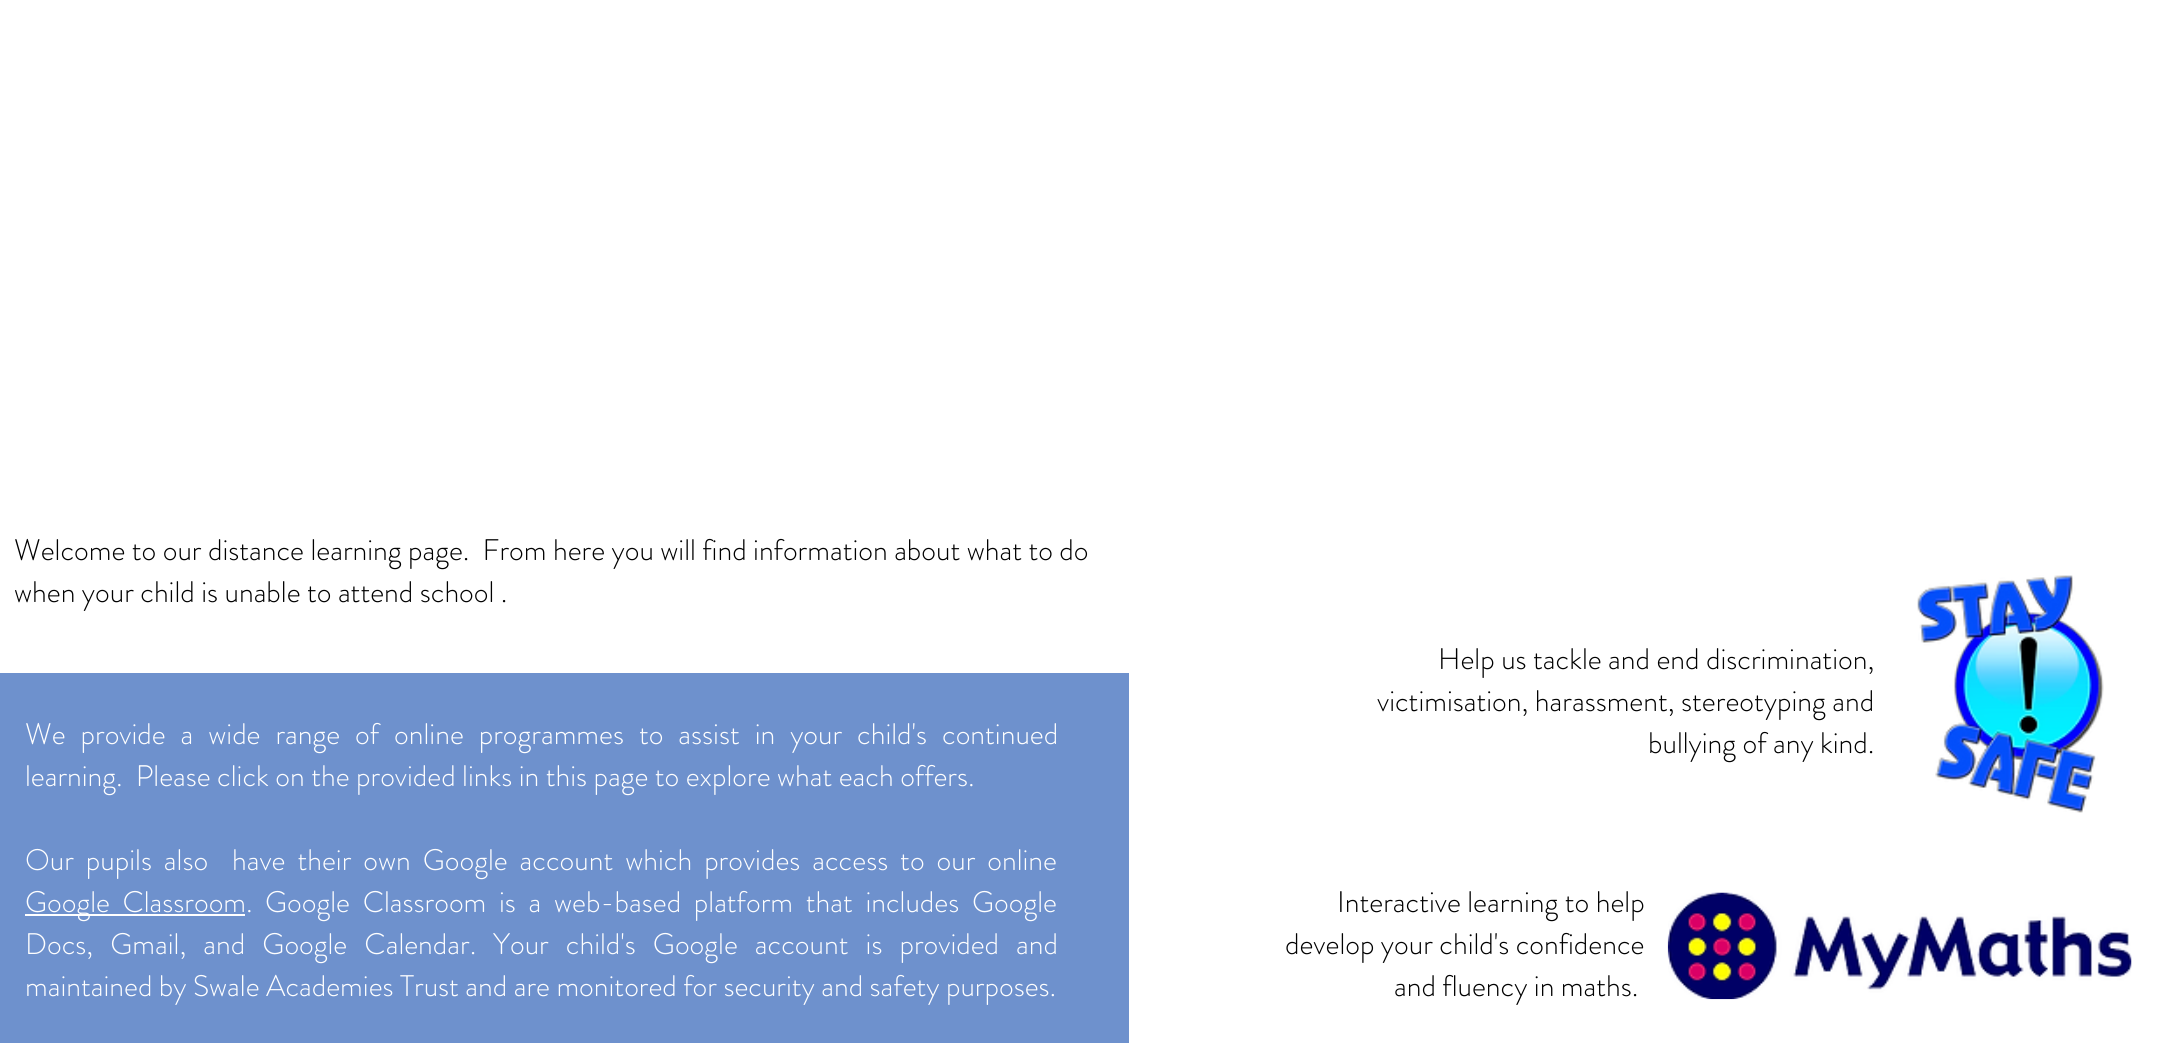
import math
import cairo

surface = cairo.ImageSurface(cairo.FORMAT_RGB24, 2179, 1043)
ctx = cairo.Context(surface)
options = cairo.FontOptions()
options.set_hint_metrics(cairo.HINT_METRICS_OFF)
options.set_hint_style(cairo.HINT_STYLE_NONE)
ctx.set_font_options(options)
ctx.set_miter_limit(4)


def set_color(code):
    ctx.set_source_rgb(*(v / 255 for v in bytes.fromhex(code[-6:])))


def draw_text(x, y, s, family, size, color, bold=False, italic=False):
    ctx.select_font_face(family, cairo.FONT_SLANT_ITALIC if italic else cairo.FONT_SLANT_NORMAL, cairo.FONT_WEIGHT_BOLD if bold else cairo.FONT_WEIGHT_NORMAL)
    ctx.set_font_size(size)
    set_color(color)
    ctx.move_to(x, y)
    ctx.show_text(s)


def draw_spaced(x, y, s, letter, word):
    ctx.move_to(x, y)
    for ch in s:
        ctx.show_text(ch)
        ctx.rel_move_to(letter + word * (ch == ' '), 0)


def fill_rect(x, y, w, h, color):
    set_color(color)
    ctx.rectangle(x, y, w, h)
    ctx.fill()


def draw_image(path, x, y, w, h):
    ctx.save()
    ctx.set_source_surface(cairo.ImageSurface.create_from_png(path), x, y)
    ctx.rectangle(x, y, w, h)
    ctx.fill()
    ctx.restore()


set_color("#ffffff")
ctx.paint()
draw_text(14, 560, "Welcome to our distance learning page.  From here you will find information about what to do", "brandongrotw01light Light", 29.75, "#000000")
draw_text(14, 602, "when your child is unable to attend school .", "brandongrotw01light Light", 29.75, "#000000")
fill_rect(0, 673, 1129, 370, "#6e91cd")
set_color("#ffffff")
draw_spaced(25, 744, "We provide a wide range of online programmes to assist in your child's continued", 0, 8.5)
draw_text(25, 786, "learning.  Please click on the provided links in this page to explore what each offers.", "brandongrotw01light Light", 29.75, "#ffffff")
draw_spaced(25, 870, "Our pupils also  have their own Google account which provides access to our online", 0, 5.5)
fill_rect(25, 914, 220, 2, "#ffffff")
draw_spaced(25, 912, "Google Classroom", 0, 6)
draw_text(246, 912, ".", "brandongrotw01light Light", 29.75, "#ffffff")
draw_spaced(265, 912, "Google Classroom is a web-based platform that includes Google", 0, 6.25)
draw_spaced(25, 954, "Docs, Gmail, and Google Calendar. Your child's Google account is provided and", 0, 10.6)
draw_text(25, 996, "maintained by Swale Academies Trust and are monitored for security and safety purposes.", "brandongrotw01light Light", 29.75, "#ffffff")
draw_text(1438, 669, "Help us tackle and end discrimination,", "brandongrotw01light Light", 29.75, "#000000")
draw_text(1377, 711, "victimisation, harassment, stereotyping and", "brandongrotw01light Light", 29.75, "#000000")
draw_text(1648, 753, "bullying of any kind.", "brandongrotw01light Light", 29.75, "#000000")
draw_image("assets/img1.png", 1917, 575, 187, 238)
draw_text(1337, 912, "Interactive learning to help", "brandongrotw01light Light", 29.75, "#000000")
draw_text(1285, 954, "develop your child's confidence", "brandongrotw01light Light", 29.75, "#000000")
draw_text(1394, 996, "and fluency in maths.", "brandongrotw01light Light", 29.75, "#000000")
draw_image("assets/img2.png", 1667, 892, 465, 108)
surface.write_to_png("output.png")
